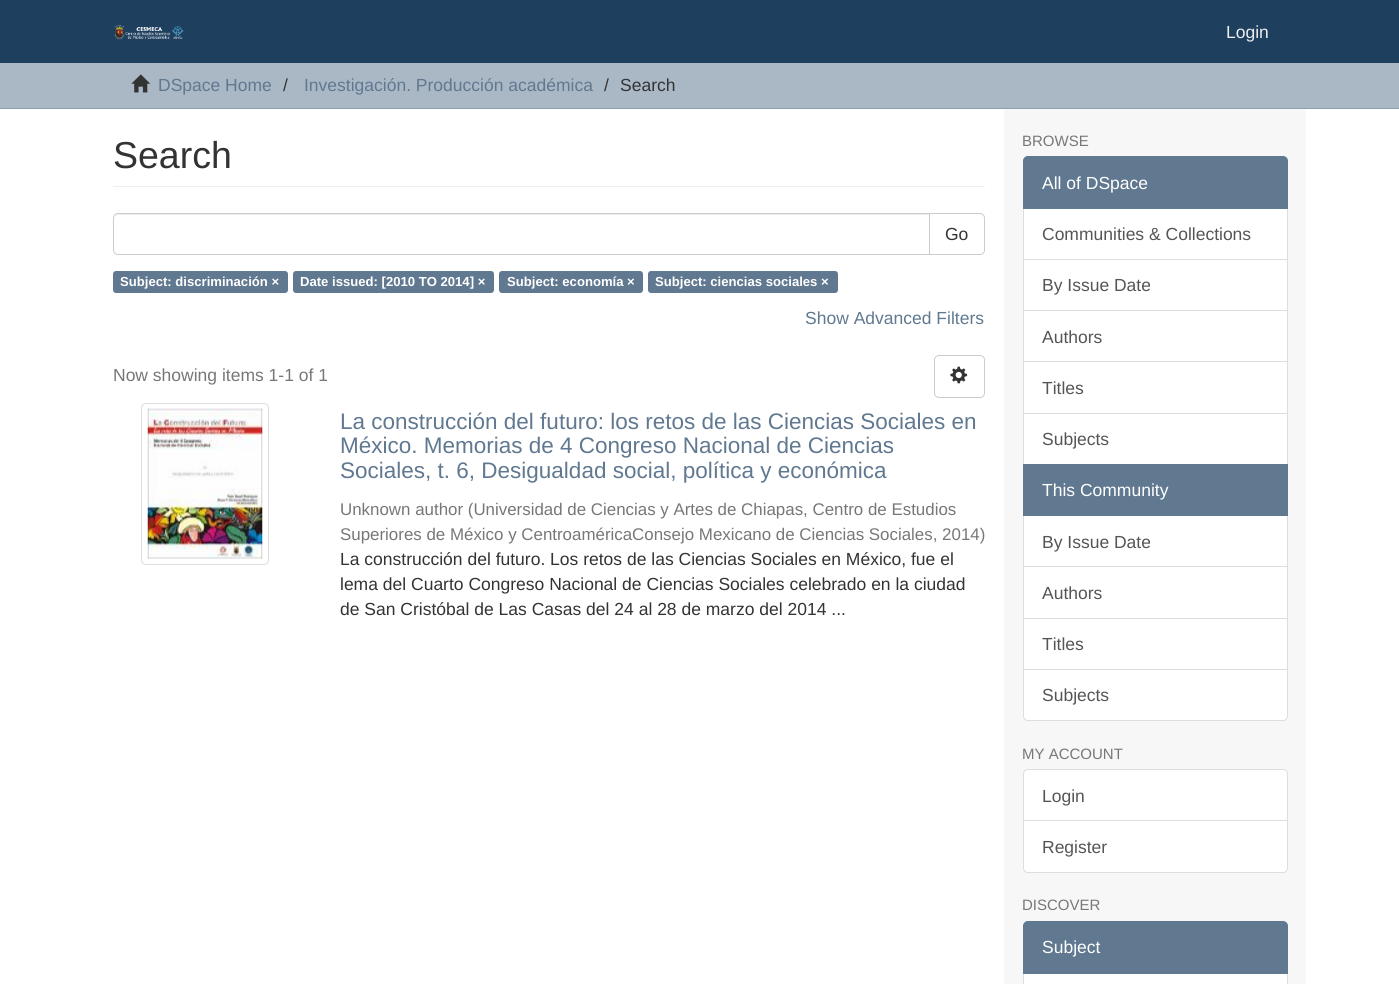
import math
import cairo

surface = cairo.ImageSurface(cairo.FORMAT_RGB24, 1399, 984)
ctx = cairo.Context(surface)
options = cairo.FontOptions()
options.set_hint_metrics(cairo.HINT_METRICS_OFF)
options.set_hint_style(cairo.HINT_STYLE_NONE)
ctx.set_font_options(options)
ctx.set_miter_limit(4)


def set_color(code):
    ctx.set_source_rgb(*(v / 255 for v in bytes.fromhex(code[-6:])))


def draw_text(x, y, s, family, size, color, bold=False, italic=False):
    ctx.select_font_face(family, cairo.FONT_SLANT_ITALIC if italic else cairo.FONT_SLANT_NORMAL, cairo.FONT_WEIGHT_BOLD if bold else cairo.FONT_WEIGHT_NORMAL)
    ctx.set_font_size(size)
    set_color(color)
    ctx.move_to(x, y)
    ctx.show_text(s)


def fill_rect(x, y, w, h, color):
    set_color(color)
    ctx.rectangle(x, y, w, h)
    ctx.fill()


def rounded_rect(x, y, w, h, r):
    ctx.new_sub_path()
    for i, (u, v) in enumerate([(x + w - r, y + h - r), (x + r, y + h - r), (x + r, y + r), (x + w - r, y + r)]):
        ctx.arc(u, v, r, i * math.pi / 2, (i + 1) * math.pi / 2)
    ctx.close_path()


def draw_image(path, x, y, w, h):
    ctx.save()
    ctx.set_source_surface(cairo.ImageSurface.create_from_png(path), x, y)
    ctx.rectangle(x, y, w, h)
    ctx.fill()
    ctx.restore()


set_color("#ffffff")
ctx.paint()
fill_rect(0, 0, 1399, 63, "#1f3f5e")
draw_image("assets/img1.png", 114, 25, 70, 15)
draw_text(1226, 38, "Login", "Liberation Sans", 17.5, "#eeeeee")
fill_rect(0, 63, 1399, 45, "#aab8c6")
fill_rect(0, 108, 1399, 1, "#8b9eb2")
draw_image("assets/img2.png", 131, 74, 19, 19)
draw_text(158, 91, "DSpace Home", "Liberation Sans", 17.5, "#607890")
draw_text(283, 91, "/", "Liberation Sans", 17.5, "#333333")
draw_text(304, 91, "Investigación. Producción académica", "Liberation Sans", 17.5, "#607890")
draw_text(604, 91, "/", "Liberation Sans", 17.5, "#333333")
draw_text(620, 91, "Search", "Liberation Sans", 17.5, "#333333")
fill_rect(1004, 109, 302, 875, "#f7f7f7")
fill_rect(113, 186, 872, 1, "#eeeeee")
draw_text(113, 168, "Search", "Liberation Sans", 37.5, "#333333")
ctx.new_path()
ctx.move_to(929.5, 213.5)
ctx.line_to(980, 213.5)
ctx.curve_to(982.5, 213.5, 984.5, 215.5, 984.5, 218)
ctx.line_to(984.5, 250)
ctx.curve_to(984.5, 252.5, 982.5, 254.5, 980, 254.5)
ctx.line_to(929.5, 254.5)
ctx.close_path()
set_color("#cccccc")
ctx.set_line_width(1)
ctx.stroke()
set_color("#ffffff")
ctx.new_path()
ctx.move_to(118, 213)
ctx.line_to(930, 213)
ctx.line_to(930, 255)
ctx.line_to(118, 255)
ctx.curve_to(115, 255, 113, 253, 113, 250)
ctx.line_to(113, 218)
ctx.curve_to(113, 215, 115, 213, 118, 213)
ctx.close_path()
ctx.fill()
set_color("#ececec")
ctx.new_path()
ctx.move_to(118, 215)
ctx.line_to(929, 215)
ctx.line_to(929, 214)
ctx.line_to(118, 214)
ctx.curve_to(115, 214, 114, 216, 114, 219)
ctx.curve_to(114, 217, 115, 215, 118, 215)
ctx.close_path()
ctx.fill()
ctx.new_path()
ctx.move_to(118, 213.5)
ctx.line_to(929.5, 213.5)
ctx.line_to(929.5, 254.5)
ctx.line_to(118, 254.5)
ctx.curve_to(115.5, 254.5, 113.5, 252.5, 113.5, 250)
ctx.line_to(113.5, 218)
ctx.curve_to(113.5, 215.5, 115.5, 213.5, 118, 213.5)
ctx.close_path()
set_color("#cccccc")
ctx.stroke()
draw_text(945, 240, "Go", "Liberation Sans", 17.5, "#333333")
set_color("#607890")
rounded_rect(113, 271, 175, 22, 3)
ctx.fill()
draw_text(120, 286, "Subject: discriminación ×", "Liberation Sans", 13.1, "#ffffff", bold=True)
set_color("#607890")
rounded_rect(293, 271, 201, 22, 3)
ctx.fill()
draw_text(300, 286, "Date issued: [2010 TO 2014] ×", "Liberation Sans", 13.1, "#ffffff", bold=True)
set_color("#607890")
rounded_rect(499, 271, 144, 22, 3)
ctx.fill()
draw_text(507, 286, "Subject: economía ×", "Liberation Sans", 13.1, "#ffffff", bold=True)
set_color("#607890")
rounded_rect(648, 271, 190, 22, 3)
ctx.fill()
draw_text(655, 286, "Subject: ciencias sociales ×", "Liberation Sans", 13.1, "#ffffff", bold=True)
draw_text(805, 324, "Show Advanced Filters", "Liberation Sans", 17.5, "#607890")
draw_text(113, 381, "Now showing items 1-1 of 1", "Liberation Sans", 17.5, "#777777")
rounded_rect(934.5, 355.5, 50, 42, 4.5)
set_color("#cccccc")
ctx.stroke()
draw_image("assets/img3.png", 950, 366, 18, 18)
rounded_rect(141.5, 403.5, 127, 161, 4.5)
set_color("#dddddd")
ctx.stroke()
draw_image("assets/img4.png", 147, 408, 116, 151)
draw_text(340, 429, "La construcción del futuro: los retos de las Ciencias Sociales en", "Liberation Sans", 22.5, "#607890")
draw_text(340, 453, "México. Memorias de 4 Congreso Nacional de Ciencias", "Liberation Sans", 22.5, "#607890")
draw_text(340, 478, "Sociales, t. 6, Desigualdad social, política y económica", "Liberation Sans", 22.5, "#607890")
draw_text(340, 515, "Unknown author (Universidad de Ciencias y Artes de Chiapas, Centro de Estudios", "Liberation Sans", 16.9, "#777777")
draw_text(340, 540, "Superiores de México y CentroaméricaConsejo Mexicano de Ciencias Sociales, 2014)", "Liberation Sans", 16.9, "#777777")
draw_text(340, 565, "La construcción del futuro. Los retos de las Ciencias Sociales en México, fue el", "Liberation Sans", 17.5, "#333333")
draw_text(340, 590, "lema del Cuarto Congreso Nacional de Ciencias Sociales celebrado en la ciudad", "Liberation Sans", 17.5, "#333333")
draw_text(340, 615, "de San Cristóbal de Las Casas del 24 al 28 de marzo del 2014 ...", "Liberation Sans", 17.5, "#333333")
draw_text(1022, 146, "BROWSE", "Liberation Sans", 15, "#777777")
set_color("#ffffff")
ctx.rectangle(1023.5, 208.5, 264, 51)
ctx.fill_preserve()
set_color("#dddddd")
ctx.stroke()
set_color("#607890")
ctx.new_path()
ctx.move_to(1028, 156.5)
ctx.line_to(1283, 156.5)
ctx.curve_to(1285.5, 156.5, 1287.5, 158.5, 1287.5, 161)
ctx.line_to(1287.5, 208.5)
ctx.line_to(1023.5, 208.5)
ctx.line_to(1023.5, 161)
ctx.curve_to(1023.5, 158.5, 1025.5, 156.5, 1028, 156.5)
ctx.close_path()
ctx.fill_preserve()
ctx.stroke()
draw_text(1042, 189, "All of DSpace", "Liberation Sans", 17.5, "#ffffff")
draw_text(1042, 240, "Communities & Collections", "Liberation Sans", 17.5, "#555555")
set_color("#ffffff")
ctx.rectangle(1023.5, 259.5, 264, 51)
ctx.fill_preserve()
set_color("#dddddd")
ctx.stroke()
draw_text(1042, 291, "By Issue Date", "Liberation Sans", 17.5, "#555555")
fill_rect(1024, 311, 263, 50, "#ffffff")
ctx.rectangle(1023.5, 310.5, 264, 52)
set_color("#dddddd")
ctx.stroke()
draw_text(1042, 343, "Authors", "Liberation Sans", 17.5, "#555555")
set_color("#ffffff")
ctx.rectangle(1023.5, 361.5, 264, 52)
ctx.fill_preserve()
set_color("#dddddd")
ctx.stroke()
draw_text(1042, 394, "Titles", "Liberation Sans", 17.5, "#555555")
set_color("#ffffff")
ctx.rectangle(1023.5, 413.5, 264, 51)
ctx.fill_preserve()
set_color("#dddddd")
ctx.stroke()
draw_text(1042, 445, "Subjects", "Liberation Sans", 17.5, "#555555")
fill_rect(1024, 516, 263, 50, "#ffffff")
ctx.rectangle(1023.5, 515.5, 264, 52)
set_color("#dddddd")
ctx.stroke()
fill_rect(1023, 464, 265, 52, "#607890")
draw_text(1042, 496, "This Community", "Liberation Sans", 17.5, "#ffffff")
draw_text(1042, 548, "By Issue Date", "Liberation Sans", 17.5, "#555555")
set_color("#ffffff")
ctx.rectangle(1023.5, 566.5, 264, 52)
ctx.fill_preserve()
set_color("#dddddd")
ctx.stroke()
draw_text(1042, 599, "Authors", "Liberation Sans", 17.5, "#555555")
set_color("#ffffff")
ctx.rectangle(1023.5, 618.5, 264, 51)
ctx.fill_preserve()
set_color("#dddddd")
ctx.stroke()
draw_text(1042, 650, "Titles", "Liberation Sans", 17.5, "#555555")
set_color("#ffffff")
ctx.new_path()
ctx.move_to(1023.5, 669.5)
ctx.line_to(1287.5, 669.5)
ctx.line_to(1287.5, 716)
ctx.curve_to(1287.5, 718.5, 1285.5, 720.5, 1283, 720.5)
ctx.line_to(1028, 720.5)
ctx.curve_to(1025.5, 720.5, 1023.5, 718.5, 1023.5, 716)
ctx.close_path()
ctx.fill_preserve()
set_color("#dddddd")
ctx.stroke()
draw_text(1042, 701, "Subjects", "Liberation Sans", 17.5, "#555555")
draw_text(1022, 759, "MY ACCOUNT", "Liberation Sans", 15, "#777777")
set_color("#ffffff")
ctx.new_path()
ctx.move_to(1028, 769.5)
ctx.line_to(1283, 769.5)
ctx.curve_to(1285.5, 769.5, 1287.5, 771.5, 1287.5, 774)
ctx.line_to(1287.5, 820.5)
ctx.line_to(1023.5, 820.5)
ctx.line_to(1023.5, 774)
ctx.curve_to(1023.5, 771.5, 1025.5, 769.5, 1028, 769.5)
ctx.close_path()
ctx.fill_preserve()
set_color("#dddddd")
ctx.stroke()
draw_text(1042, 802, "Login", "Liberation Sans", 17.5, "#555555")
set_color("#ffffff")
ctx.new_path()
ctx.move_to(1023.5, 820.5)
ctx.line_to(1287.5, 820.5)
ctx.line_to(1287.5, 868)
ctx.curve_to(1287.5, 870.5, 1285.5, 872.5, 1283, 872.5)
ctx.line_to(1028, 872.5)
ctx.curve_to(1025.5, 872.5, 1023.5, 870.5, 1023.5, 868)
ctx.close_path()
ctx.fill_preserve()
set_color("#dddddd")
ctx.stroke()
draw_text(1042, 853, "Register", "Liberation Sans", 17.5, "#555555")
draw_text(1022, 910, "DISCOVER", "Liberation Sans", 15, "#777777")
set_color("#ffffff")
ctx.rectangle(1023.5, 973.5, 264, 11)
ctx.fill_preserve()
set_color("#dddddd")
ctx.stroke()
set_color("#607890")
ctx.new_path()
ctx.move_to(1028, 921.5)
ctx.line_to(1283, 921.5)
ctx.curve_to(1285.5, 921.5, 1287.5, 923.5, 1287.5, 926)
ctx.line_to(1287.5, 973.5)
ctx.line_to(1023.5, 973.5)
ctx.line_to(1023.5, 926)
ctx.curve_to(1023.5, 923.5, 1025.5, 921.5, 1028, 921.5)
ctx.close_path()
ctx.fill_preserve()
ctx.stroke()
draw_text(1042, 953, "Subject", "Liberation Sans", 17.5, "#ffffff")
surface.write_to_png("output.png")
